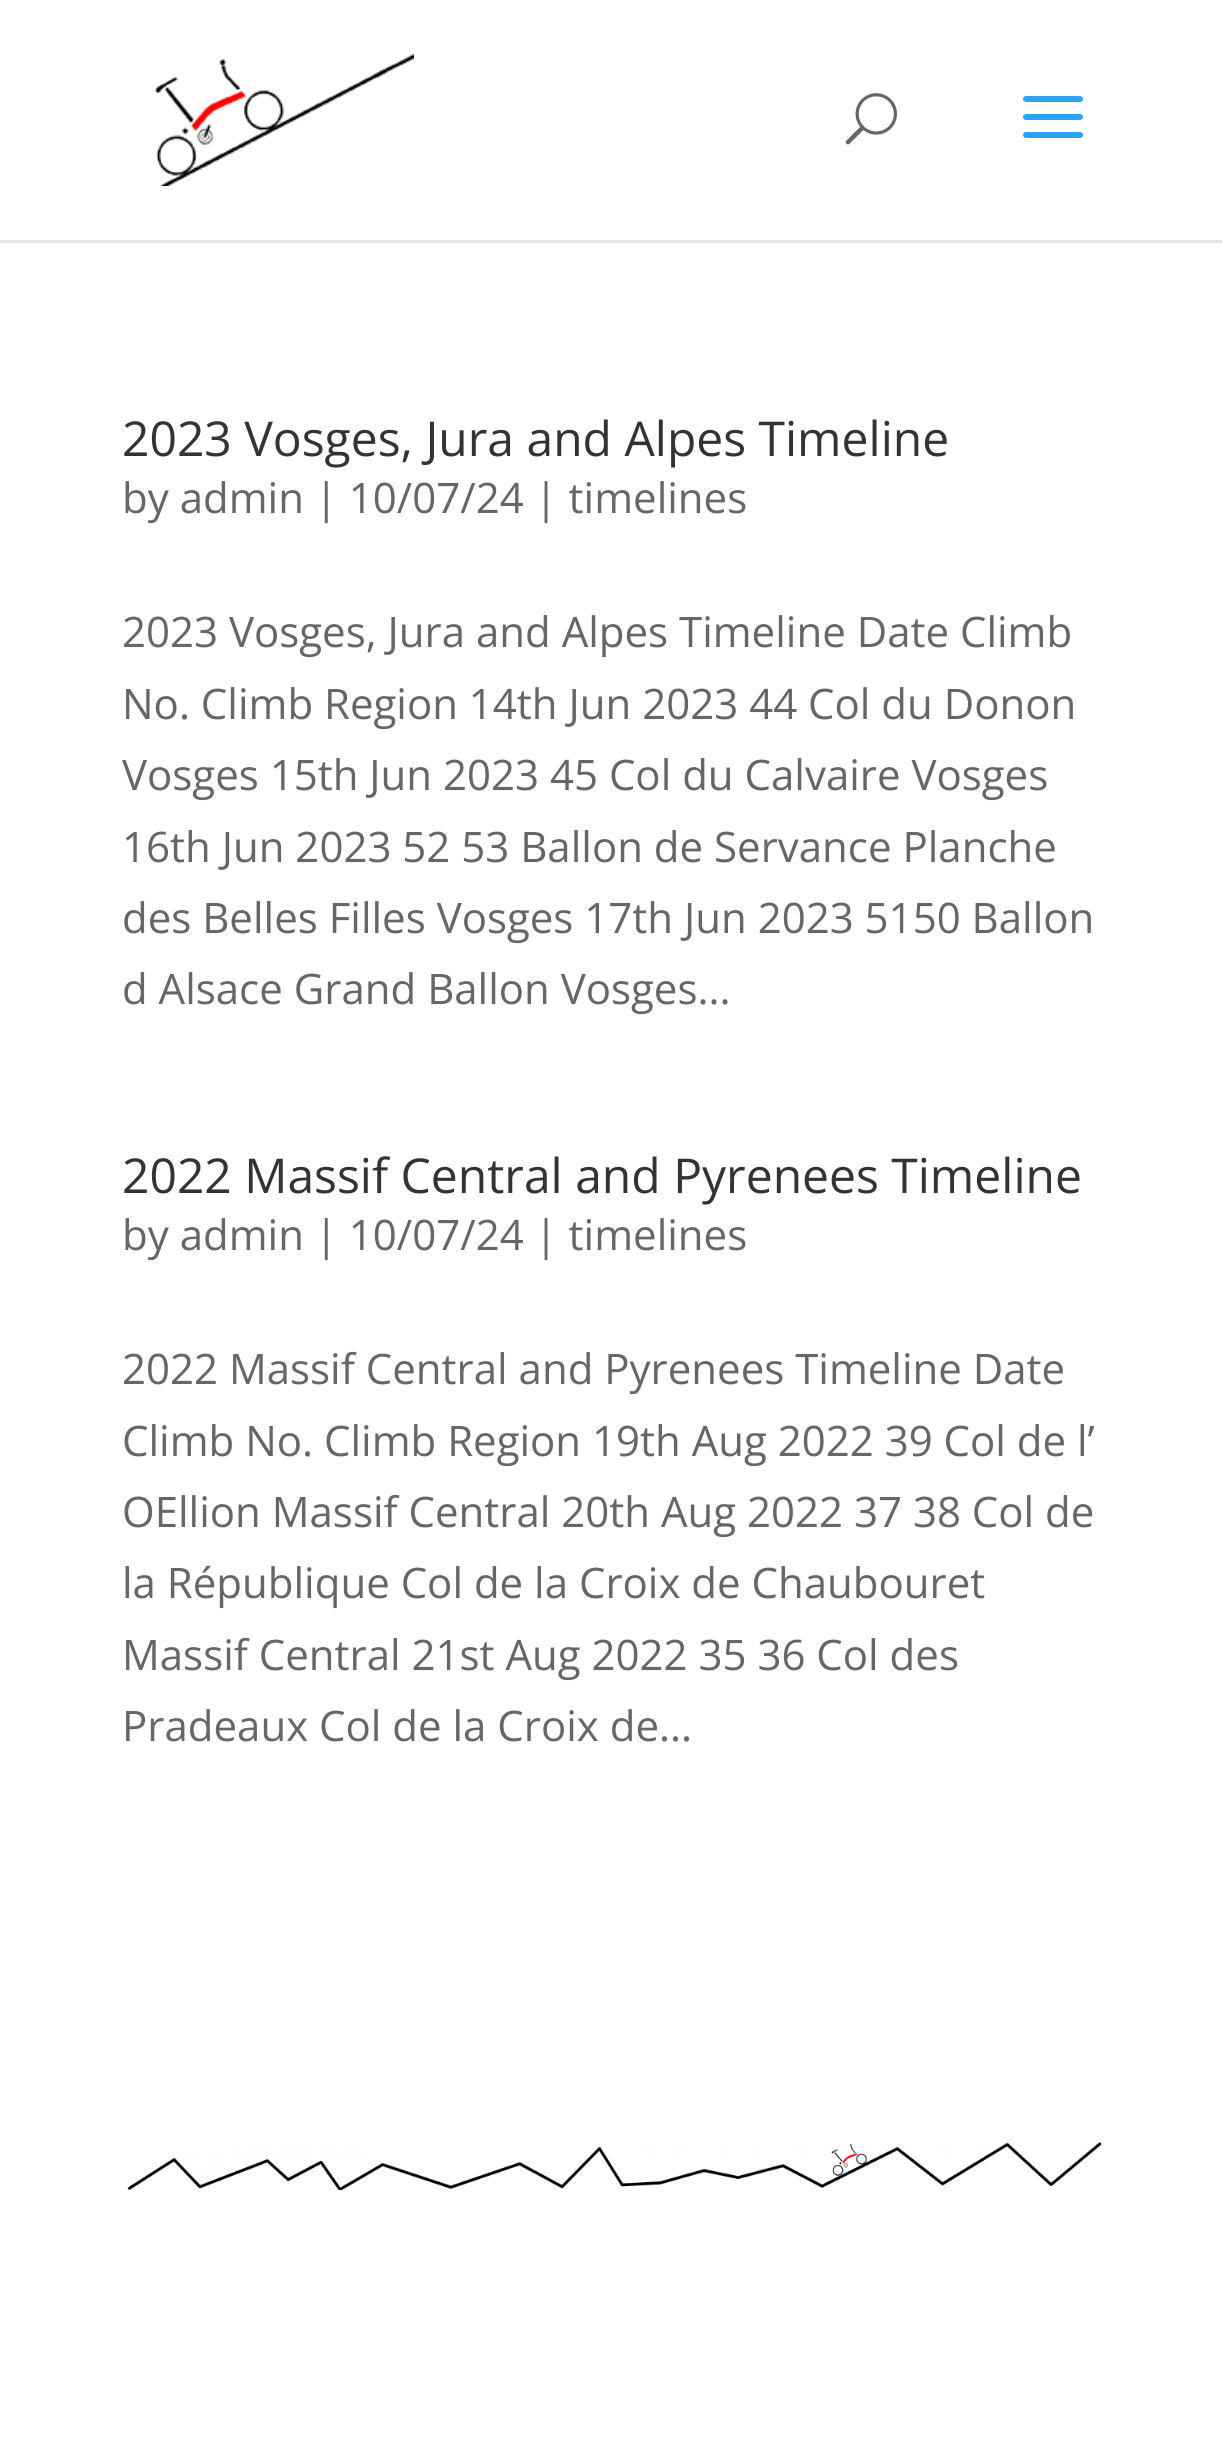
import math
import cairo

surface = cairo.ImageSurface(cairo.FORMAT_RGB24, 1222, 2444)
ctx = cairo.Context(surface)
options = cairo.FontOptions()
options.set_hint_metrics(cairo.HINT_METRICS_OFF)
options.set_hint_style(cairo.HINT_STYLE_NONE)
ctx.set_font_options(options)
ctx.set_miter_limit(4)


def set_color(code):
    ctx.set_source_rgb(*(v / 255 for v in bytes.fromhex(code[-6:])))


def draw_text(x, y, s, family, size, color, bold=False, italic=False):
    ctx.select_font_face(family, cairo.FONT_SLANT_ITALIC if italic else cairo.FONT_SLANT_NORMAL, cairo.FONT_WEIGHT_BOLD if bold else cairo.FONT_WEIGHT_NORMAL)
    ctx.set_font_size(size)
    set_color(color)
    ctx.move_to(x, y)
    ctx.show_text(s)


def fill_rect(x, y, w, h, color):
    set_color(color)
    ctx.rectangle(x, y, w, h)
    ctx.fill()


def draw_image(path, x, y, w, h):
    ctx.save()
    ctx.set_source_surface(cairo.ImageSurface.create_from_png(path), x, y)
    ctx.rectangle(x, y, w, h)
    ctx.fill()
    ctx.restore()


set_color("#ffffff")
ctx.paint()
fill_rect(0, 240, 1222, 3, "#e6e6e6")
draw_image("assets/img1.png", 154, 54, 260, 132)
draw_image("assets/img2.png", 845, 93, 52, 52)
draw_image("assets/img3.png", 1023, 96, 60, 42)
draw_text(122, 456, "2023 Vosges, Jura and Alpes Timeline", "Open Sans", 48, "#333333")
draw_text(122, 513, "by admin | 10/07/24 | timelines", "Open Sans", 42, "#666666")
draw_text(122, 647, "2023 Vosges, Jura and Alpes Timeline Date Climb", "Open Sans", 42, "#666666")
draw_text(122, 719, "No. Climb Region 14th Jun 2023 44 Col du Donon", "Open Sans", 42, "#666666")
draw_text(122, 790, "Vosges 15th Jun 2023 45 Col du Calvaire Vosges", "Open Sans", 42, "#666666")
draw_text(122, 862, "16th Jun 2023 52 53 Ballon de Servance Planche", "Open Sans", 42, "#666666")
draw_text(122, 933, "des Belles Filles Vosges 17th Jun 2023 5150 Ballon", "Open Sans", 42, "#666666")
draw_text(122, 1004, "d Alsace Grand Ballon Vosges...", "Open Sans", 42, "#666666")
draw_text(122, 1193, "2022 Massif Central and Pyrenees Timeline", "Open Sans", 48, "#333333")
draw_text(122, 1250, "by admin | 10/07/24 | timelines", "Open Sans", 42, "#666666")
draw_text(122, 1384, "2022 Massif Central and Pyrenees Timeline Date", "Open Sans", 42, "#666666")
draw_text(122, 1456, "Climb No. Climb Region 19th Aug 2022 39 Col de l’", "Open Sans", 42, "#666666")
draw_text(122, 1527, "OEllion Massif Central 20th Aug 2022 37 38 Col de", "Open Sans", 42, "#666666")
draw_text(122, 1598, "la République Col de la Croix de Chaubouret", "Open Sans", 42, "#666666")
draw_text(122, 1670, "Massif Central 21st Aug 2022 35 36 Col des", "Open Sans", 42, "#666666")
draw_text(122, 1741, "Pradeaux Col de la Croix de...", "Open Sans", 42, "#666666")
draw_image("assets/img4.png", 127, 2142, 974, 48)
surface.write_to_png("output.png")
